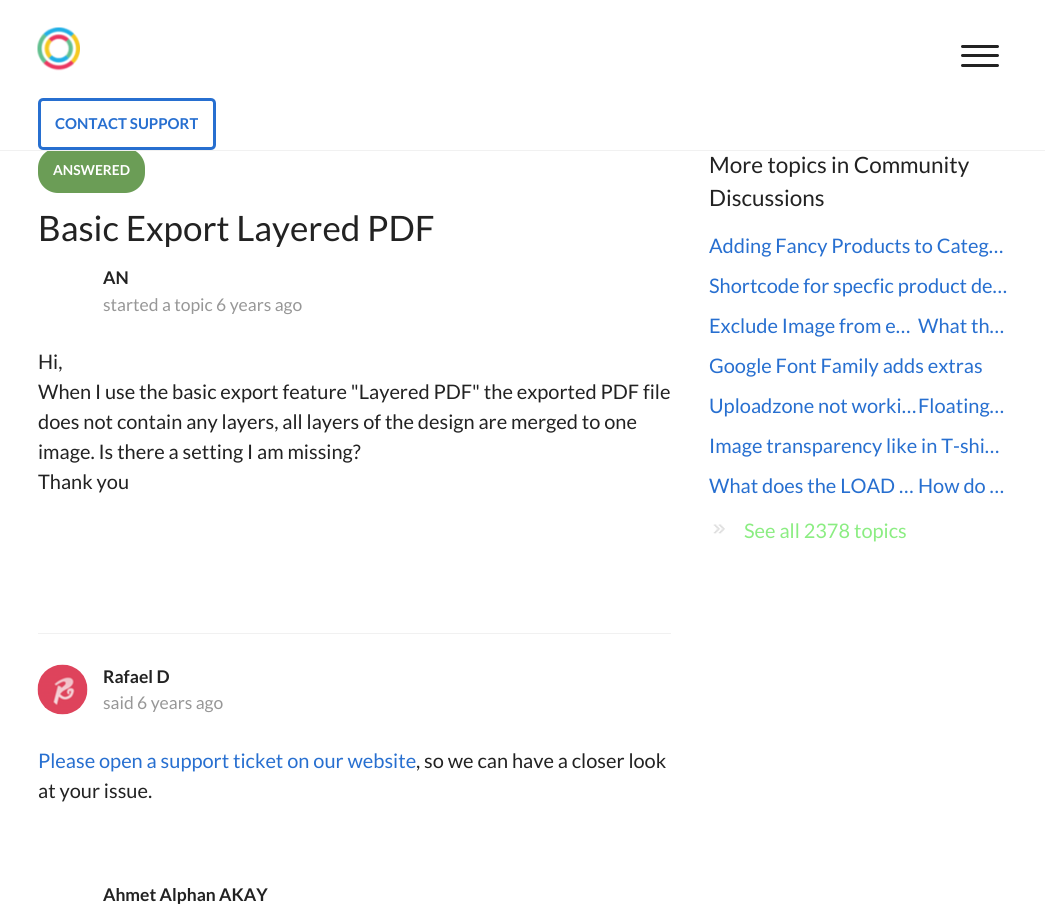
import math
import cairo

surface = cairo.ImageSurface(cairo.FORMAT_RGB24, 1045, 909)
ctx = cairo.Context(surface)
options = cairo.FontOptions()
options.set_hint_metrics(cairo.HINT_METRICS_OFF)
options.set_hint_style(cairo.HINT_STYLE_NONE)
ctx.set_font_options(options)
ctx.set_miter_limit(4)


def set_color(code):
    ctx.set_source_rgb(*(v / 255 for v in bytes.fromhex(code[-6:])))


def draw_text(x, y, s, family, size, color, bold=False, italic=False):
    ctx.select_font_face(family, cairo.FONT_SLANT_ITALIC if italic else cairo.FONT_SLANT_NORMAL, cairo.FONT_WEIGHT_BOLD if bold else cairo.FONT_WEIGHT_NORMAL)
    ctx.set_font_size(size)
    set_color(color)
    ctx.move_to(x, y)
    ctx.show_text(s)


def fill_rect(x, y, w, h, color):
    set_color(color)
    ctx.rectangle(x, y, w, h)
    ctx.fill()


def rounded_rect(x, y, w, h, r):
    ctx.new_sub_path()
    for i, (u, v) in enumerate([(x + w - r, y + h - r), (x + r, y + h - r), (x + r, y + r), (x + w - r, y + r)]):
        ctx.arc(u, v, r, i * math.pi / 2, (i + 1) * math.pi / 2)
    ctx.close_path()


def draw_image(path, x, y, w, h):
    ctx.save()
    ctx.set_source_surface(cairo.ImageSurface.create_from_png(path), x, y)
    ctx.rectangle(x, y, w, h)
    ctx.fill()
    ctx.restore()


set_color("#ffffff")
ctx.paint()
set_color("#6b9d56")
rounded_rect(38, 148, 107, 45, 20)
ctx.fill()
fill_rect(49, 148, 85, 2, "#ffffff")
fill_rect(0, 150, 1045, 1, "#f1f1f1")
draw_image("assets/img1.png", 37, 27, 43, 44)
set_color("#222222")
rounded_rect(961, 54, 38, 3, 1.5)
ctx.fill()
rounded_rect(961, 45, 38, 3, 1.5)
ctx.fill()
rounded_rect(961, 64, 38, 3, 1.5)
ctx.fill()
rounded_rect(39.5, 99.5, 175, 49, 3.5)
set_color("#276fd0")
ctx.set_line_width(3)
ctx.stroke()
draw_text(55, 129, "CONTACT SUPPORT", "Lato", 15, "#276fd0", bold=True)
fill_rect(38, 633, 633, 1, "#f1f1f1")
draw_text(53, 175, "ANSWERED", "Lato", 13.75, "#ffffff", bold=True)
draw_text(38, 241, "Basic Export Layered PDF", "Lato", 35, "#222222")
draw_text(103, 284, "AN", "Lato", 17.5, "#222222", bold=True)
draw_text(103, 311, "started a topic 6 years ago", "Lato", 17.5, "#979797")
draw_text(38, 369, "Hi,", "Lato", 20, "#222222")
draw_text(38, 399, "When I use the basic export feature \"Layered PDF\" the exported PDF file", "Lato", 20, "#222222")
draw_text(38, 429, "does not contain any layers, all layers of the design are merged to one", "Lato", 20, "#222222")
draw_text(38, 459, "image. Is there a setting I am missing?", "Lato", 20, "#222222")
draw_text(38, 489, "Thank you", "Lato", 20, "#222222")
draw_image("assets/img2.png", 37, 664, 51, 51)
draw_text(103, 683, "Rafael D", "Lato", 17.5, "#222222", bold=True)
draw_text(103, 709, "said 6 years ago", "Lato", 17.5, "#979797")
draw_text(38, 768, "Please open a support ticket on our website", "Lato", 20, "#276fd0")
draw_text(416, 768, ", so we can have a closer look", "Lato", 20, "#222222")
draw_text(38, 798, "at your issue.", "Lato", 20, "#222222")
draw_text(103, 901, "Ahmet Alphan AKAY", "Lato", 17.5, "#222222", bold=True)
draw_text(709, 173, "More topics in Community", "Lato", 22.5, "#222222")
draw_text(709, 206, "Discussions", "Lato", 22.5, "#222222")
draw_text(709, 253, "Adding Fancy Products to Categ…", "Lato", 20, "#276fd0")
draw_text(709, 293, "Shortcode for specfic product de…", "Lato", 20, "#276fd0")
draw_text(709, 333, "Exclude Image from e…", "Lato", 20, "#276fd0")
draw_text(918, 333, "What th…", "Lato", 20, "#276fd0")
draw_text(709, 373, "Google Font Family adds extras", "Lato", 20, "#276fd0")
draw_text(709, 413, "Uploadzone not worki…", "Lato", 20, "#276fd0")
draw_text(918, 413, "Floating…", "Lato", 20, "#276fd0")
draw_text(709, 453, "Image transparency like in T-shi…", "Lato", 20, "#276fd0")
draw_text(709, 493, "What does the LOAD …", "Lato", 20, "#276fd0")
draw_text(918, 493, "How do …", "Lato", 20, "#276fd0")
draw_image("assets/img3.png", 713, 524, 12, 10)
draw_text(744, 538, "See all 2378 topics", "Lato", 20, "#8bed82")
surface.write_to_png("output.png")
